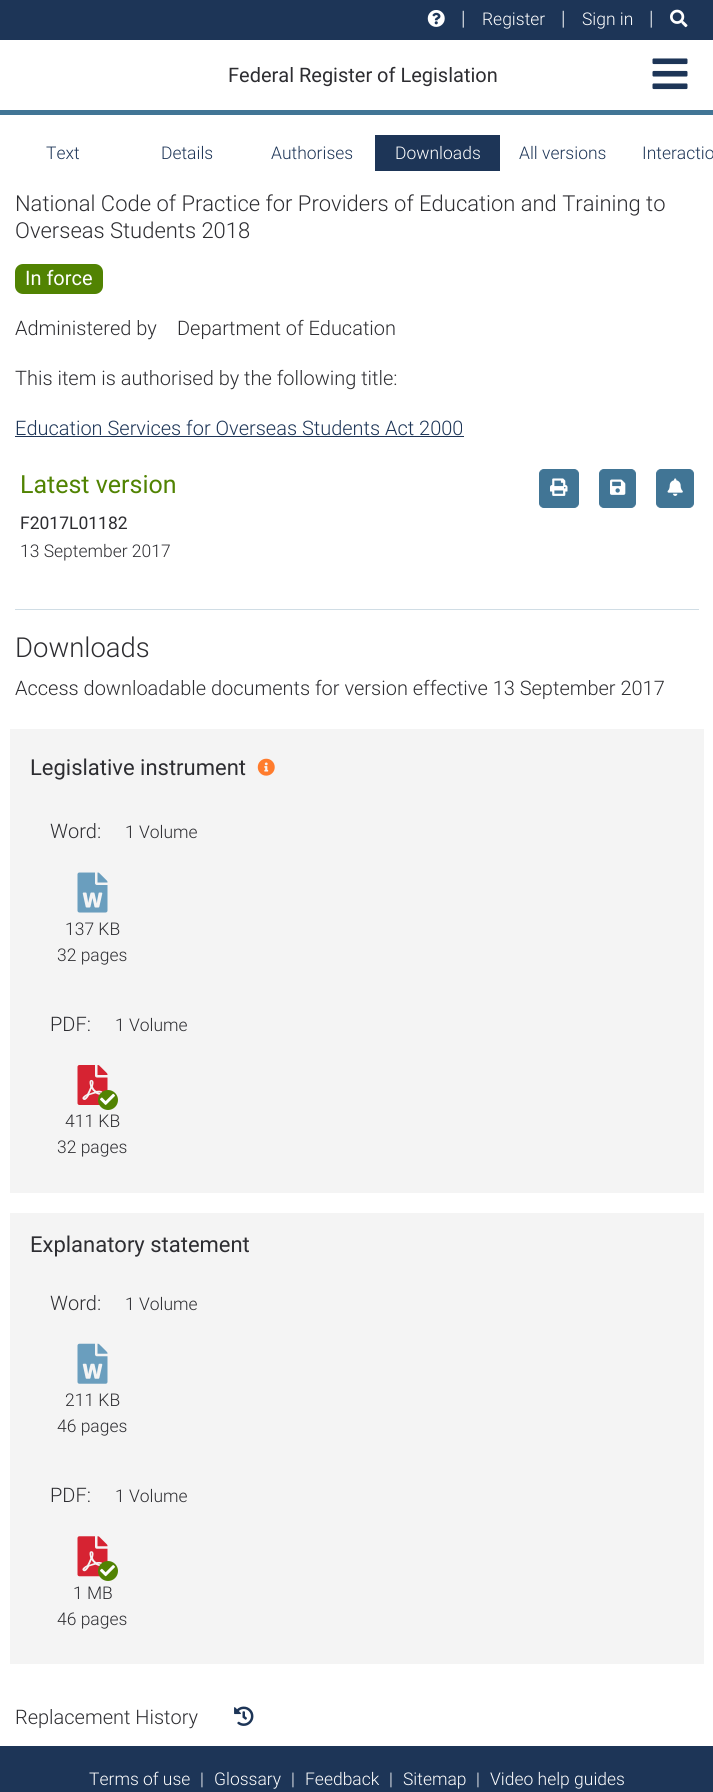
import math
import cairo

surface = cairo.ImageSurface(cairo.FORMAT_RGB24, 713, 1792)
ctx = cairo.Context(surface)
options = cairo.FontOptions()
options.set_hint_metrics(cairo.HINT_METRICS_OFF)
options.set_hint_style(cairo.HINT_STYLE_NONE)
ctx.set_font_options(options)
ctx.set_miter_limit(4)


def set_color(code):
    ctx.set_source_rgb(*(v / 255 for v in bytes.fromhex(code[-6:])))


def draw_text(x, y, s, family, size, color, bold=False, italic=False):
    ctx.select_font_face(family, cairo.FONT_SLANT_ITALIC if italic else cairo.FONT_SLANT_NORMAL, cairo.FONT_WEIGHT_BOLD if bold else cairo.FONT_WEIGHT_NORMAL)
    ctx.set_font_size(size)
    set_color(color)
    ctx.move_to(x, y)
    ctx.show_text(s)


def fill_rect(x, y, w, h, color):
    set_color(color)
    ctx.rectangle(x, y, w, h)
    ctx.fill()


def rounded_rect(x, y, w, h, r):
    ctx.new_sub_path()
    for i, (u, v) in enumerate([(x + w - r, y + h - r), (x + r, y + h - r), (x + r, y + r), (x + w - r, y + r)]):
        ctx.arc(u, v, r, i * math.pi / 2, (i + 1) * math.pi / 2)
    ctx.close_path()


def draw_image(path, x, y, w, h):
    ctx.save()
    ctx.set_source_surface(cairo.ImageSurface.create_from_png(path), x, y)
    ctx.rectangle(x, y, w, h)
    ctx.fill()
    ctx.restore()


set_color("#ffffff")
ctx.paint()
fill_rect(0, 110, 713, 5, "#417595")
fill_rect(0, 0, 713, 40, "#1d3557")
draw_image("assets/img1.png", 427, 10, 18, 17)
draw_text(461, 25, "|", "Roboto Light", 20, "#ffffff")
draw_text(482, 25, "Register", "Roboto Light", 17.5, "#ffffff")
draw_text(561, 25, "|", "Roboto Light", 20, "#ffffff")
draw_text(582, 25, "Sign in", "Roboto Light", 17.5, "#ffffff")
draw_text(649, 25, "|", "Roboto Light", 20, "#ffffff")
draw_image("assets/img2.png", 670, 9, 18, 19)
draw_text(228, 82, "Federal Register of Legislation", "Roboto", 20, "#2d2d31")
draw_image("assets/img3.png", 652, 58, 36, 32)
draw_text(46, 159, "Text", "Roboto Light", 17.5, "#1d3557")
draw_text(161, 159, "Details", "Roboto Light", 17.5, "#1d3557")
draw_text(271, 159, "Authorises", "Roboto Light", 17.5, "#1d3557")
fill_rect(375, 135, 125, 36, "#1d3557")
draw_text(395, 159, "Downloads", "Roboto Light", 17.5, "#ffffff")
draw_text(519, 159, "All versions", "Roboto Light", 17.5, "#1d3557")
draw_text(642, 159, "Interactio", "Roboto Light", 17.5, "#1d3557")
draw_text(15, 211, "National Code of Practice for Providers of Education and Training to", "Roboto Light", 22, "#2d2d31")
draw_text(15, 238, "Overseas Students 2018", "Roboto Light", 22, "#2d2d31")
set_color("#518302")
rounded_rect(15, 264, 88, 30, 8)
ctx.fill()
draw_text(25, 285, "In force", "Roboto", 20, "#ffffff")
draw_text(15, 335, "Administered by", "Roboto Light", 20, "#2d2d31")
draw_text(177, 335, "Department of Education", "Roboto Light", 20, "#2d2d31")
draw_text(15, 385, "This item is authorised by the following title:", "Roboto Light", 20, "#2d2d31")
draw_text(15, 435, "Education Services for Overseas Students Act 2000", "Roboto Light", 20, "#1d3557")
fill_rect(15, 436, 449, 1, "#1d3557")
draw_text(20, 493, "Latest version", "Roboto", 25, "#518302")
set_color("#417595")
rounded_rect(539.5, 469.5, 39, 38, 4.5)
ctx.fill_preserve()
ctx.set_line_width(1)
ctx.stroke()
draw_image("assets/img4.png", 550, 478, 18, 18)
rounded_rect(599.5, 469.5, 36, 38, 4.5)
ctx.fill_preserve()
ctx.stroke()
draw_image("assets/img5.png", 610, 479, 16, 16)
rounded_rect(656.5, 469.5, 37, 38, 4.5)
ctx.fill_preserve()
ctx.stroke()
draw_image("assets/img6.png", 667, 478, 16, 18)
draw_text(20, 529, "F2017L01182", "Roboto", 17.5, "#2d2d31")
draw_text(20, 557, "13 September 2017", "Roboto Light", 17.5, "#2d2d31")
fill_rect(15, 609, 684, 1, "#d0dde5")
draw_text(15, 657, "Downloads", "Roboto Light", 27.5, "#2d2d31")
draw_text(15, 695, "Access downloadable documents for version effective 13 September 2017", "Roboto Light", 20, "#2d2d31")
fill_rect(10, 729, 694, 464, "#f4f4f4")
draw_text(30, 775, "Legislative instrument", "Roboto", 22, "#2d2d31")
draw_image("assets/img7.png", 257, 758, 18, 18)
draw_text(50, 838, "Word:", "Roboto Light", 20, "#2d2d31")
draw_text(125, 838, "1 Volume", "Roboto Light", 17.5, "#2d2d31")
draw_image("assets/img8.png", 77, 872, 31, 41)
draw_text(65, 935, "137 KB", "Roboto Light", 17.5, "#2d2d31")
draw_text(57, 961, "32 pages", "Roboto Light", 17.5, "#2d2d31")
draw_text(50, 1031, "PDF:", "Roboto Light", 20, "#2d2d31")
draw_text(115, 1031, "1 Volume", "Roboto Light", 17.5, "#2d2d31")
draw_image("assets/img9.png", 77, 1065, 31, 40)
set_color("#518302")
ctx.arc(108, 1100, 10, 0, 2 * math.pi)
ctx.fill()
draw_image("assets/img10.png", 100, 1093, 15, 12)
draw_text(65, 1127, "411 KB", "Roboto Light", 17.5, "#2d2d31")
draw_text(57, 1153, "32 pages", "Roboto Light", 17.5, "#2d2d31")
fill_rect(10, 1213, 694, 451, "#f4f4f4")
draw_text(30, 1252, "Explanatory statement", "Roboto", 22, "#2d2d31")
draw_text(50, 1310, "Word:", "Roboto Light", 20, "#2d2d31")
draw_text(125, 1310, "1 Volume", "Roboto Light", 17.5, "#2d2d31")
draw_image("assets/img11.png", 77, 1343, 31, 41)
draw_text(65, 1406, "211 KB", "Roboto Light", 17.5, "#2d2d31")
draw_text(57, 1432, "46 pages", "Roboto Light", 17.5, "#2d2d31")
draw_text(50, 1502, "PDF:", "Roboto Light", 20, "#2d2d31")
draw_text(115, 1502, "1 Volume", "Roboto Light", 17.5, "#2d2d31")
draw_image("assets/img12.png", 77, 1536, 31, 41)
set_color("#518302")
ctx.arc(108, 1571, 10, 0, 2 * math.pi)
ctx.fill()
draw_image("assets/img13.png", 100, 1565, 15, 12)
draw_text(73, 1599, "1 MB", "Roboto Light", 17.5, "#2d2d31")
draw_text(57, 1625, "46 pages", "Roboto Light", 17.5, "#2d2d31")
draw_text(15, 1724, "Replacement History", "Roboto Light", 20, "#2d2d31")
draw_image("assets/img14.png", 234, 1706, 20, 20)
fill_rect(0, 1746, 713, 46, "#1d3557")
draw_text(89, 1785, "Terms of use", "Roboto Light", 17.5, "#ffffff")
draw_text(200, 1785, "|", "Roboto Light", 17.5, "#ffffff")
draw_text(214, 1785, "Glossary", "Roboto Light", 17.5, "#ffffff")
draw_text(291, 1785, "|", "Roboto Light", 17.5, "#ffffff")
draw_text(305, 1785, "Feedback", "Roboto Light", 17.5, "#ffffff")
draw_text(389, 1785, "|", "Roboto Light", 17.5, "#ffffff")
draw_text(403, 1785, "Sitemap", "Roboto Light", 17.5, "#ffffff")
draw_text(476, 1785, "|", "Roboto Light", 17.5, "#ffffff")
draw_text(490, 1785, "Video help guides", "Roboto Light", 17.5, "#ffffff")
surface.write_to_png("output.png")
